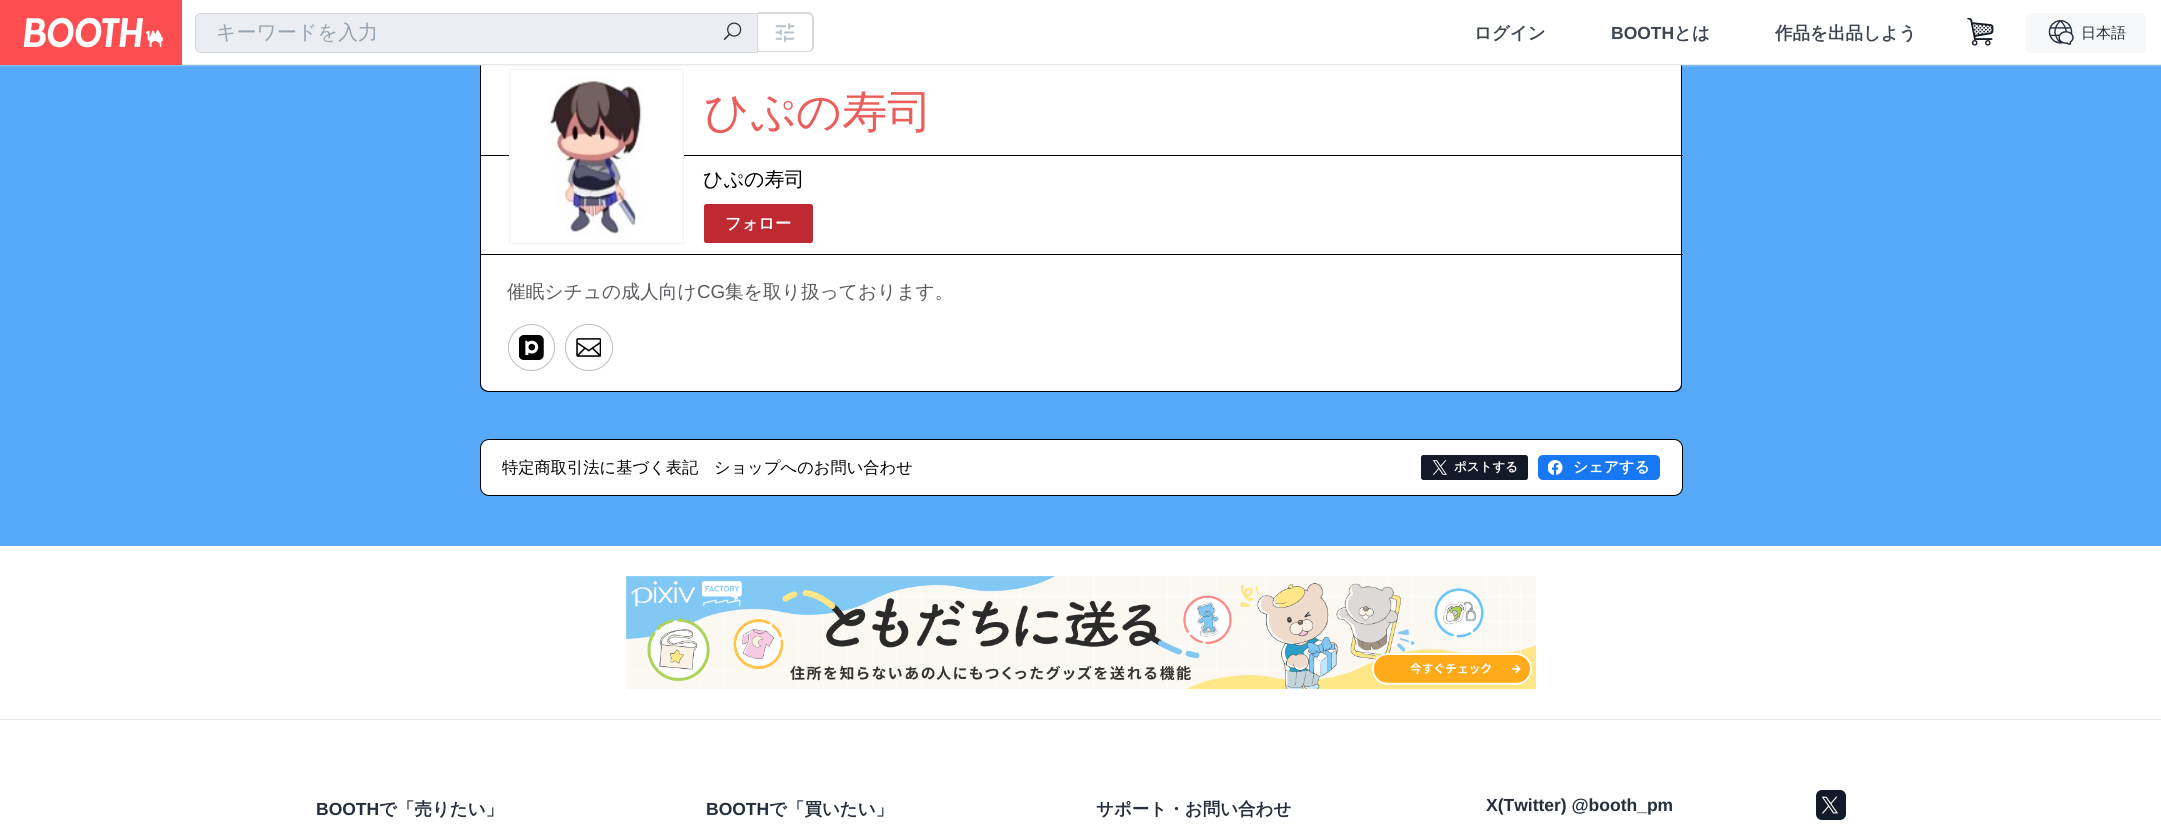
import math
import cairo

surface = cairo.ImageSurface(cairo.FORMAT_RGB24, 2161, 831)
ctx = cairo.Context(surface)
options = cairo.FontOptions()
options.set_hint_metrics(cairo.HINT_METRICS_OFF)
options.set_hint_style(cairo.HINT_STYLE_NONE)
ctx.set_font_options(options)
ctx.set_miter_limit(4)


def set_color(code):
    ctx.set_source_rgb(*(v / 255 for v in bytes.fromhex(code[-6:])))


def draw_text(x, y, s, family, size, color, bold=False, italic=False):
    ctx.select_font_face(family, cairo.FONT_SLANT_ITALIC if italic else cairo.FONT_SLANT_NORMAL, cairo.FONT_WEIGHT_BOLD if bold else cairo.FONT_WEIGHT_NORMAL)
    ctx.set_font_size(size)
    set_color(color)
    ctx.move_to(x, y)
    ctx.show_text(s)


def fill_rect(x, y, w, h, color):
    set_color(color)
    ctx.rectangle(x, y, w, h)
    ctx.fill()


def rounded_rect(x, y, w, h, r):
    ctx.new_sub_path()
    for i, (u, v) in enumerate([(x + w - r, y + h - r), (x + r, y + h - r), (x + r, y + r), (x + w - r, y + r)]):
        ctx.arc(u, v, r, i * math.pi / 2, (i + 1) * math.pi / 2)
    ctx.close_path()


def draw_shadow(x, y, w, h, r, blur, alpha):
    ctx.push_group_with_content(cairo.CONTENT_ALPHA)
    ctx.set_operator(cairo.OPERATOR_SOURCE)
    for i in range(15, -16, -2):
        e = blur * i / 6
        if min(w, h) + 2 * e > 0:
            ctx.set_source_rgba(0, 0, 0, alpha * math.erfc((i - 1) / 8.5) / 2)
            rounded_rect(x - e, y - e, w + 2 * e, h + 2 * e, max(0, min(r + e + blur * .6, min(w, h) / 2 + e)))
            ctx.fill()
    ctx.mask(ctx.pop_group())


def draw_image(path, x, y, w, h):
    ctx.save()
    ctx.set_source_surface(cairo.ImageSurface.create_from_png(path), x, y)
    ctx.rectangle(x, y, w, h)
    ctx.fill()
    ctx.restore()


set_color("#56a9f6")
ctx.paint()
set_color("#ffffff")
ctx.new_path()
ctx.move_to(481, -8)
ctx.line_to(1681, -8)
ctx.line_to(1681, 383)
ctx.curve_to(1681, 387.5, 1677.5, 391, 1673, 391)
ctx.line_to(489, 391)
ctx.curve_to(484.5, 391, 481, 387.5, 481, 383)
ctx.close_path()
ctx.fill()
set_color("#000000")
ctx.set_fill_rule(cairo.FILL_RULE_EVEN_ODD)
ctx.new_path()
ctx.move_to(480, -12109)
ctx.line_to(1682, -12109)
ctx.line_to(1682, 384)
ctx.curve_to(1682, 389, 1679, 392, 1674, 392)
ctx.line_to(489, 392)
ctx.curve_to(484, 392, 480, 389, 480, 384)
ctx.close_path()
ctx.move_to(481, -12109)
ctx.line_to(1681, -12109)
ctx.line_to(1681, 384)
ctx.curve_to(1681, 388, 1678, 391, 1674, 391)
ctx.line_to(489, 391)
ctx.curve_to(485, 391, 481, 388, 481, 384)
ctx.close_path()
ctx.fill()
set_color("#e6e8eb")
draw_shadow(0, 0, 2161, 65, 0, 1, 1)
fill_rect(182, 0, 1979, 64, "#ffffff")
fill_rect(182, 64, 1979, 1, "#e6e8eb")
draw_image("assets/img1.png", 0, 0, 182, 65)
set_color("#ebedf2")
ctx.new_path()
ctx.move_to(201, 13.5)
ctx.line_to(757.5, 13.5)
ctx.line_to(757.5, 52.5)
ctx.line_to(201, 52.5)
ctx.curve_to(198, 52.5, 195.5, 50, 195.5, 47)
ctx.line_to(195.5, 19)
ctx.curve_to(195.5, 16, 198, 13.5, 201, 13.5)
ctx.close_path()
ctx.fill_preserve()
set_color("#d5d9de")
ctx.set_line_width(1)
ctx.stroke()
draw_text(216, 39, "キーワードを入力", "WenQuanYi Zen Hei Medium", 20, "#96a2b0")
draw_image("assets/img2.png", 723, 22, 19, 18)
set_color("#d5d9de")
ctx.new_path()
ctx.move_to(758, 12)
ctx.line_to(808, 12)
ctx.curve_to(811, 12, 814, 15, 814, 19)
ctx.line_to(814, 46)
ctx.curve_to(814, 50, 811, 52, 808, 52)
ctx.line_to(758, 52)
ctx.close_path()
ctx.move_to(758, 14)
ctx.line_to(808, 14)
ctx.curve_to(810, 14, 812, 16, 812, 19)
ctx.line_to(812, 46)
ctx.curve_to(812, 49, 810, 51, 808, 51)
ctx.line_to(758, 51)
ctx.close_path()
ctx.fill()
draw_image("assets/img3.png", 775, 23, 20, 19)
draw_text(1474, 39, "ログイン", "WenQuanYi Zen Hei", 17.5, "#3d4651", bold=True)
draw_text(1611, 39, "BOOTH", "Liberation Sans", 17.5, "#3d4651", bold=True)
draw_text(1674, 39, "とは", "WenQuanYi Zen Hei", 17.5, "#3d4651", bold=True)
draw_text(1775, 39, "作品を出品しよう", "WenQuanYi Zen Hei", 17.5, "#3d4651", bold=True)
draw_image("assets/img4.png", 1967, 18, 27, 28)
set_color("#f7f8fa")
rounded_rect(2026, 13, 120, 40, 5)
ctx.fill()
draw_image("assets/img5.png", 2048, 20, 26, 25)
draw_text(2081, 38, "日本語", "WenQuanYi Zen Hei Medium", 15, "#252f3d")
draw_text(704, 127, "ひぷの寿司", "WenQuanYi Zen Hei Medium", 45, "#ea5e5b")
fill_rect(480, 155, 1203, 1, "#000000")
fill_rect(510, 155, 173, 1, "#ffffff")
ctx.rectangle(509.5, 69.5, 174, 174)
set_color("#f3f3f3")
ctx.stroke()
draw_image("assets/img6.png", 548, 77, 97, 159)
draw_text(703, 186, "ひぷの寿司", "WenQuanYi Zen Hei Medium", 20, "#000000")
set_color("#bf2932")
rounded_rect(704, 204, 109, 39, 2.5)
ctx.fill()
draw_text(725, 229, "フォロー", "WenQuanYi Zen Hei", 16.25, "#ffffff", bold=True)
fill_rect(480, 254, 1203, 1, "#000000")
draw_text(507, 298, "催眠シチュの成人向け", "WenQuanYi Zen Hei Medium", 18.75, "#5a5a60")
draw_text(697, 298, "CG", "Liberation Sans", 18.75, "#5a5a60")
draw_text(725, 298, "集を取り扱っております。", "WenQuanYi Zen Hei Medium", 18.75, "#5a5a60")
ctx.new_path()
ctx.arc(531.5, 347.5, 23, 0, 2 * math.pi)
set_color("#bdbdbf")
ctx.stroke()
draw_image("assets/img7.png", 519, 335, 25, 25)
rounded_rect(565.5, 324.5, 47, 46, 23)
ctx.stroke()
draw_image("assets/img8.png", 576, 338, 25, 19)
set_color("#ffffff")
rounded_rect(480.5, 439.5, 1202, 56, 8.5)
ctx.fill_preserve()
set_color("#000000")
ctx.stroke()
draw_text(502, 473, "特定商取引法に基づく表記", "WenQuanYi Zen Hei Medium", 16.25, "#000000")
draw_text(714, 473, "ショップへのお問い合わせ", "WenQuanYi Zen Hei Medium", 16.25, "#000000")
set_color("#121a29")
rounded_rect(1421, 455, 107, 25, 2.5)
ctx.fill()
draw_image("assets/img9.png", 1432, 460, 15, 15)
draw_text(1454, 471, "ポストする", "WenQuanYi Zen Hei", 12.5, "#ffffff", bold=True)
set_color("#1877f2")
rounded_rect(1538, 455, 122, 25, 5)
ctx.fill()
draw_image("assets/img10.png", 1548, 460, 15, 15)
draw_text(1573, 472, "シェアする", "WenQuanYi Zen Hei", 15, "#ffffff", bold=True)
fill_rect(0, 546, 2161, 285, "#ffffff")
draw_image("assets/img11.png", 626, 576, 910, 113)
fill_rect(0, 719, 2161, 1, "#e6e8eb")
draw_text(316, 815, "BOOTH", "Liberation Sans", 17.5, "#252f3d", bold=True)
draw_text(379, 815, "で「売りたい」", "WenQuanYi Zen Hei", 17.5, "#252f3d", bold=True)
draw_text(706, 815, "BOOTH", "Liberation Sans", 17.5, "#252f3d", bold=True)
draw_text(769, 815, "で「買いたい」", "WenQuanYi Zen Hei", 17.5, "#252f3d", bold=True)
draw_text(1096, 815, "サポート・お問い合わせ", "WenQuanYi Zen Hei", 17.5, "#252f3d", bold=True)
draw_text(1486, 811, "X(Twitter) @booth_pm", "Liberation Sans", 17.5, "#252f3d", bold=True)
set_color("#121a29")
rounded_rect(1816, 790, 30, 30, 6)
ctx.fill()
draw_image("assets/img12.png", 1821, 796, 17, 18)
surface.write_to_png("output.png")
